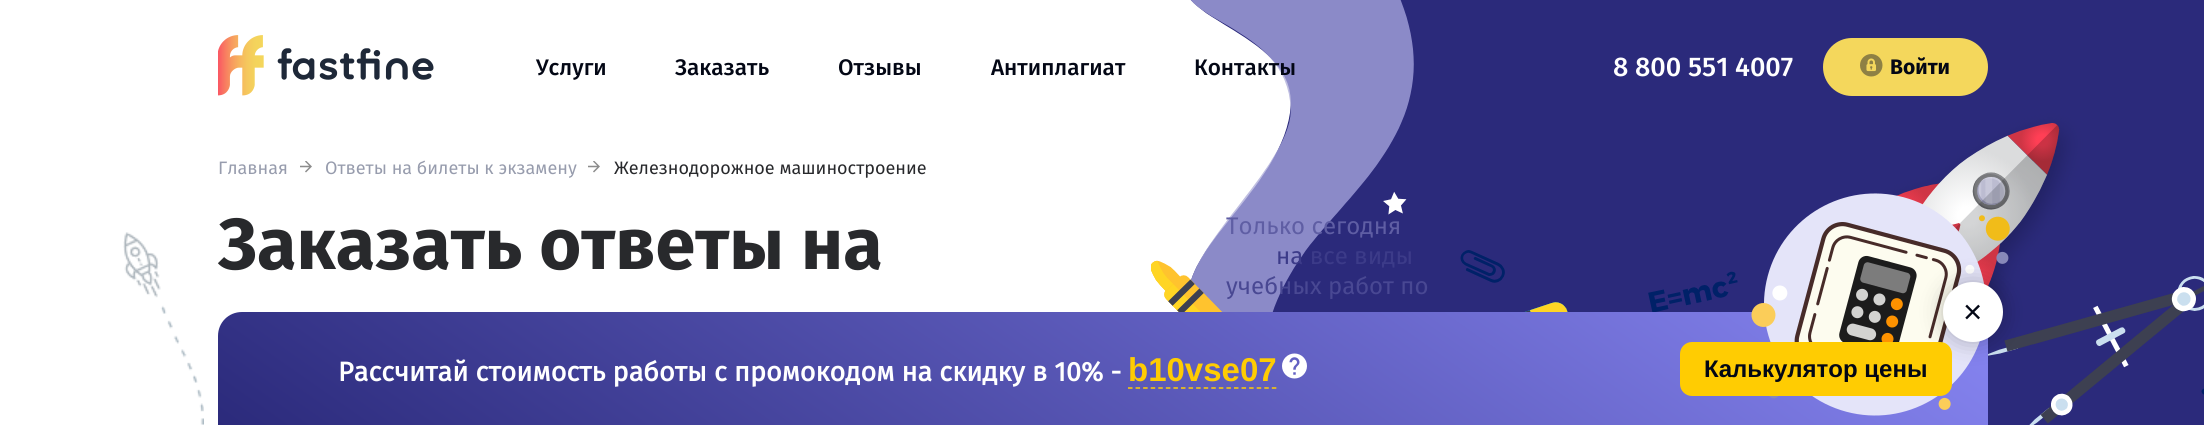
import math
import cairo

surface = cairo.ImageSurface(cairo.FORMAT_RGB24, 2204, 425)
ctx = cairo.Context(surface)
options = cairo.FontOptions()
options.set_hint_metrics(cairo.HINT_METRICS_OFF)
options.set_hint_style(cairo.HINT_STYLE_NONE)
ctx.set_font_options(options)
ctx.set_miter_limit(4)


def set_color(code):
    ctx.set_source_rgb(*(v / 255 for v in bytes.fromhex(code[-6:])))


def draw_text(x, y, s, family, size, color, bold=False, italic=False):
    ctx.select_font_face(family, cairo.FONT_SLANT_ITALIC if italic else cairo.FONT_SLANT_NORMAL, cairo.FONT_WEIGHT_BOLD if bold else cairo.FONT_WEIGHT_NORMAL)
    ctx.set_font_size(size)
    set_color(color)
    ctx.move_to(x, y)
    ctx.show_text(s)


def rounded_rect(x, y, w, h, r):
    ctx.new_sub_path()
    for i, (u, v) in enumerate([(x + w - r, y + h - r), (x + r, y + h - r), (x + r, y + r), (x + w - r, y + r)]):
        ctx.arc(u, v, r, i * math.pi / 2, (i + 1) * math.pi / 2)
    ctx.close_path()


def draw_shadow(x, y, w, h, r, blur, alpha):
    ctx.push_group_with_content(cairo.CONTENT_ALPHA)
    ctx.set_operator(cairo.OPERATOR_SOURCE)
    for i in range(15, -16, -2):
        e = blur * i / 6
        if min(w, h) + 2 * e > 0:
            ctx.set_source_rgba(0, 0, 0, alpha * math.erfc((i - 1) / 8.5) / 2)
            rounded_rect(x - e, y - e, w + 2 * e, h + 2 * e, max(0, min(r + e + blur * .6, min(w, h) / 2 + e)))
            ctx.fill()
    ctx.mask(ctx.pop_group())


def draw_image(path, x, y, w, h):
    ctx.save()
    ctx.set_source_surface(cairo.ImageSurface.create_from_png(path), x, y)
    ctx.rectangle(x, y, w, h)
    ctx.fill()
    ctx.restore()


set_color("#ffffff")
ctx.paint()
draw_image("assets/img1.png", 1151, 0, 1053, 425)
draw_image("assets/img2.png", 218, 35, 216, 61)
draw_text(536, 75, "Услуги", "Fira Sans Medium", 22.5, "#030715")
draw_text(675, 75, "Заказать", "Fira Sans Medium", 22.5, "#030715")
draw_text(838, 75, "Отзывы", "Fira Sans Medium", 22.5, "#030715")
draw_text(991, 75, "Антиплагиат", "Fira Sans Medium", 22.5, "#030715")
draw_text(1194, 75, "Контакты", "Fira Sans Medium", 22.5, "#030715")
draw_text(1613, 76, "8 800 551 4007", "Fira Sans Medium", 27, "#ffffff")
set_color("#f4d75c")
rounded_rect(1823, 38, 165, 58, 29)
ctx.fill()
draw_image("assets/img3.png", 1860, 54, 23, 23)
draw_text(1890, 74, "Войти", "Fira Sans", 21, "#030715", bold=True)
draw_text(218, 174, "Главная", "Fira Sans", 18, "#979cad")
draw_image("assets/img4.png", 300, 161, 12, 12)
draw_text(325, 174, "Ответы на билеты к экзамену", "Fira Sans", 18, "#979cad")
draw_image("assets/img4.png", 588, 161, 12, 12)
draw_text(614, 174, "Железнодорожное машиностроение", "Fira Sans", 18, "#28292c")
draw_image("assets/img5.png", 123, 232, 81, 193)
draw_text(218, 269, "Заказать ответы на", "Fira Sans", 72, "#28292c", bold=True)
gradient = cairo.LinearGradient(1420, -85, 785, 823)
gradient.add_color_stop_rgba(0, 0.529, 0.522, 0.949, 1)
gradient.add_color_stop_rgba(1, 0.169, 0.165, 0.482, 1)
ctx.set_source(gradient)
ctx.new_path()
ctx.move_to(242, 312)
ctx.line_to(1964, 312)
ctx.curve_to(1977.5, 312, 1988, 322.5, 1988, 336)
ctx.line_to(1988, 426)
ctx.line_to(218, 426)
ctx.line_to(218, 336)
ctx.curve_to(218, 322.5, 228.5, 312, 242, 312)
ctx.close_path()
ctx.fill()
draw_text(1226, 234, "Только сегодня", "Fira Sans", 24, "#5f5ea4")
draw_text(1276, 264, "на все виды", "Fira Sans", 24, "#3c3b89")
draw_text(1226, 294, "учебных работ по", "Fira Sans", 24, "#494893")
draw_image("assets/img6.png", 1282, 353, 25, 26)
draw_text(338, 381, "Рассчитай стоимость работы с промокодом на скидку в 10% -", "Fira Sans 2", 27, "#ffffff", bold=True)
ctx.new_path()
ctx.move_to(1128, 388)
ctx.line_to(1276.5, 388)
set_color("#ffcc02")
ctx.set_line_width(1.5)
ctx.set_dash([4.5, 3.07])
ctx.stroke()
draw_text(1128, 381, "b10vse07", "Liberation Sans", 33, "#ffcc02", bold=True)
draw_image("assets/img7.png", 1751, 193, 259, 223)
set_color("#000000")
draw_shadow(1943, 282, 60, 60, 30, 11, 0.25)
set_color("#ffffff")
ctx.arc(1973, 312, 30, 0, 2 * math.pi)
ctx.fill()
draw_text(1963, 323, "×", "Liberation Sans", 33, "#030715")
set_color("#ffcc02")
rounded_rect(1680, 342, 272, 54, 12)
ctx.fill()
draw_text(1704, 377, "Калькулятор цены", "Liberation Sans", 24, "#030715", bold=True)
surface.write_to_png("output.png")
